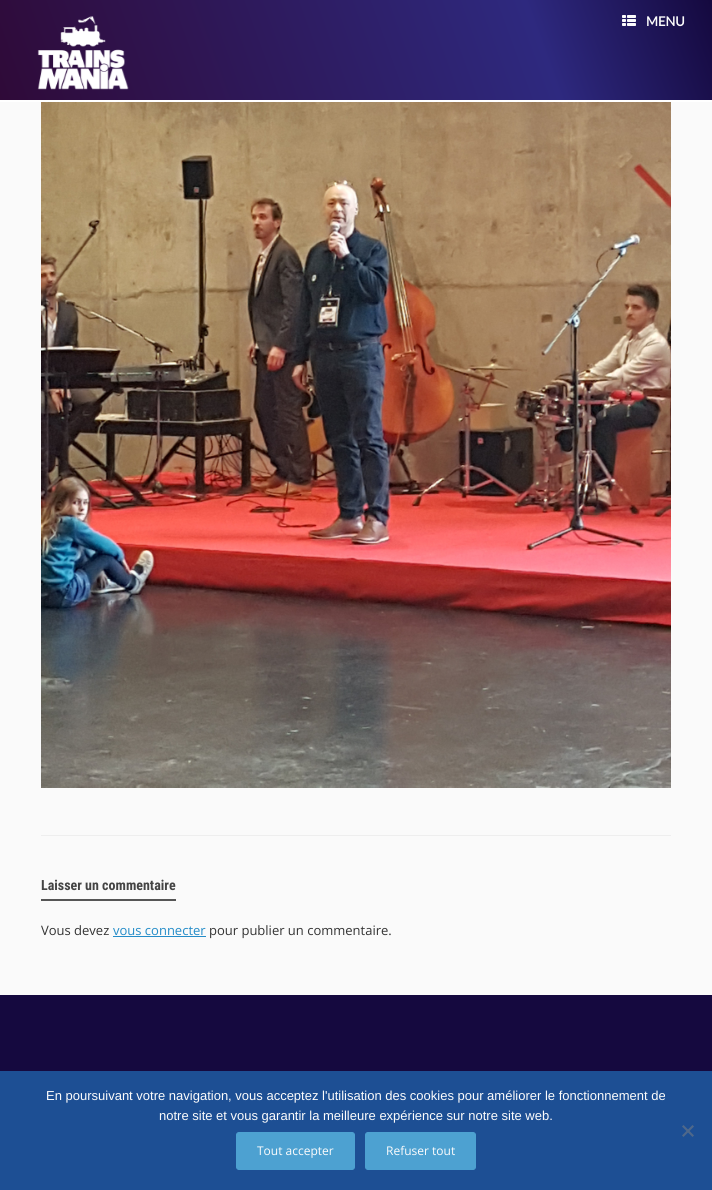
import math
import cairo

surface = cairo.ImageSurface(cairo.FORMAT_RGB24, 712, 1190)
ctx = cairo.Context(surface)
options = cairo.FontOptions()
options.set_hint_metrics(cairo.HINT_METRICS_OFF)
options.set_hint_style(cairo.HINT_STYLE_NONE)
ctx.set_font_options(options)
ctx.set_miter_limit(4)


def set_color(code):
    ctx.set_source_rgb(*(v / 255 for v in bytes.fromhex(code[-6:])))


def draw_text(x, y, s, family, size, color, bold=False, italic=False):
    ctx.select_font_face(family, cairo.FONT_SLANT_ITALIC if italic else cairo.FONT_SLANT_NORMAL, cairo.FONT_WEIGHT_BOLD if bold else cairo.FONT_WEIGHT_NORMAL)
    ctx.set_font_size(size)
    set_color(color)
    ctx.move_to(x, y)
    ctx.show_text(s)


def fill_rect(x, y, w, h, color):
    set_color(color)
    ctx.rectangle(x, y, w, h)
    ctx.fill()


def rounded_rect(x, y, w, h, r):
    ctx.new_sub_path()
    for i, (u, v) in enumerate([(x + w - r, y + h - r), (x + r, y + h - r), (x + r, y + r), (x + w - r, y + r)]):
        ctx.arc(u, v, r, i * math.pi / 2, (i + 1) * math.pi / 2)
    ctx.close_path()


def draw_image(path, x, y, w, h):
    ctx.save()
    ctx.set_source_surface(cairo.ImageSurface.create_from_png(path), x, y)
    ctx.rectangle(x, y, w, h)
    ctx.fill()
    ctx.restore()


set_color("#15093f")
ctx.paint()
fill_rect(0, 100, 712, 2, "#ffffff")
gradient = cairo.LinearGradient(26, 170, 686, -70)
gradient.add_color_stop_rgba(0, 0.184, 0.039, 0.22, 1)
gradient.add_color_stop_rgba(0.75, 0.18, 0.161, 0.498, 1)
gradient.add_color_stop_rgba(1, 0.082, 0.035, 0.247, 1)
ctx.set_source(gradient)
ctx.rectangle(0, 0, 712, 100)
ctx.fill()
draw_image("assets/img1.png", 37, 16, 92, 74)
draw_image("assets/img2.png", 622, 15, 14, 11)
draw_text(646, 26, "MENU", "Lato", 13, "#fcfcfc", bold=True)
fill_rect(0, 102, 712, 893, "#fafafa")
fill_rect(41, 835, 630, 1, "#eeeeee")
draw_image("assets/img3.png", 41, 102, 630, 686)
fill_rect(41, 899, 135, 2, "#555555")
draw_text(41, 890, "Laisser un commentaire", "Roboto Condensed", 14, "#444444", bold=True)
draw_text(41, 935, "Vous devez", "Open Sans", 13, "#333333")
draw_text(113, 935, "vous connecter", "Open Sans", 13, "#248cc8")
fill_rect(113, 936, 93, 1, "#248cc8")
draw_text(209, 935, "pour publier un commentaire.", "Open Sans", 13, "#333333")
fill_rect(0, 1071, 712, 119, "#1d4f94")
draw_text(46, 1100, "En poursuivant votre navigation, vous acceptez l'utilisation des cookies pour améliorer le fonctionnement de", "Liberation Sans", 13, "#fcfcfc")
draw_text(159, 1120, "notre site et vous garantir la meilleure expérience sur notre site web.", "Liberation Sans", 13, "#fcfcfc")
set_color("#4f688a")
ctx.new_path()
ctx.move_to(692.5, 1125)
ctx.line_to(694, 1126.5)
ctx.line_to(683.5, 1137)
ctx.line_to(682, 1135.5)
ctx.close_path()
ctx.fill()
ctx.new_path()
ctx.move_to(682, 1126.5)
ctx.line_to(683.5, 1125)
ctx.line_to(694, 1135.5)
ctx.line_to(692.5, 1137)
ctx.close_path()
ctx.fill()
set_color("#4da1d1")
rounded_rect(236.5, 1132.5, 118, 37, 2.5)
ctx.fill_preserve()
ctx.set_line_width(1)
ctx.stroke()
draw_text(257, 1155, "Tout accepter", "Open Sans", 12, "#fcfcfc")
set_color("#4da1d1")
rounded_rect(365.5, 1132.5, 110, 37, 2.5)
ctx.fill_preserve()
ctx.stroke()
draw_text(386, 1155, "Refuser tout", "Open Sans", 12, "#fcfcfc")
surface.write_to_png("output.png")
